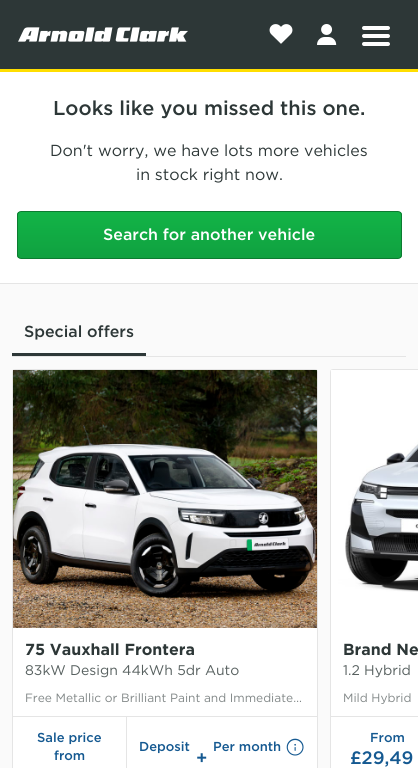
import math
import cairo

surface = cairo.ImageSurface(cairo.FORMAT_RGB24, 418, 768)
ctx = cairo.Context(surface)
options = cairo.FontOptions()
options.set_hint_metrics(cairo.HINT_METRICS_OFF)
options.set_hint_style(cairo.HINT_STYLE_NONE)
ctx.set_font_options(options)
ctx.set_miter_limit(4)


def set_color(code):
    ctx.set_source_rgb(*(v / 255 for v in bytes.fromhex(code[-6:])))


def draw_text(x, y, s, family, size, color, bold=False, italic=False):
    ctx.select_font_face(family, cairo.FONT_SLANT_ITALIC if italic else cairo.FONT_SLANT_NORMAL, cairo.FONT_WEIGHT_BOLD if bold else cairo.FONT_WEIGHT_NORMAL)
    ctx.set_font_size(size)
    set_color(color)
    ctx.move_to(x, y)
    ctx.show_text(s)


def fill_rect(x, y, w, h, color):
    set_color(color)
    ctx.rectangle(x, y, w, h)
    ctx.fill()


def rounded_rect(x, y, w, h, r):
    ctx.new_sub_path()
    for i, (u, v) in enumerate([(x + w - r, y + h - r), (x + r, y + h - r), (x + r, y + r), (x + w - r, y + r)]):
        ctx.arc(u, v, r, i * math.pi / 2, (i + 1) * math.pi / 2)
    ctx.close_path()


def draw_image(path, x, y, w, h):
    ctx.save()
    ctx.set_source_surface(cairo.ImageSurface.create_from_png(path), x, y)
    ctx.rectangle(x, y, w, h)
    ctx.fill()
    ctx.restore()


set_color("#fafafa")
ctx.paint()
fill_rect(0, 0, 418, 69, "#2d3737")
fill_rect(0, 69, 418, 3, "#ffde00")
draw_image("assets/img1.png", 18, 27, 170, 15)
draw_image("assets/img2.png", 269, 24, 24, 20)
draw_image("assets/img3.png", 317, 24, 20, 21)
draw_image("assets/img4.png", 362, 26, 28, 20)
fill_rect(0, 72, 418, 211, "#ffffff")
fill_rect(0, 283, 418, 1, "#e5e5e5")
draw_text(53, 115, "Looks like you missed this one.", "Gotham Medium", 20, "#2d3737")
draw_text(50, 156, "Don't worry, we have lots more vehicles", "Gotham", 16, "#2d3737")
draw_text(136, 180, "in stock right now.", "Gotham", 16, "#2d3737")
ctx.save()
rounded_rect(17, 211, 385, 48, 4)
ctx.clip()
gradient = cairo.LinearGradient(210, 212, 210, 258)
gradient.add_color_stop_rgba(0, 0.071, 0.706, 0.278, 1)
gradient.add_color_stop_rgba(1, 0.063, 0.631, 0.251, 1)
ctx.set_source(gradient)
ctx.rectangle(17, 212, 385, 46)
ctx.fill()
ctx.restore()
rounded_rect(17.5, 211.5, 384, 47, 3.5)
set_color("#0c7c31")
ctx.set_line_width(1)
ctx.stroke()
draw_text(103, 240, "Search for another vehicle", "Gotham Medium", 16, "#ffffff")
fill_rect(12, 356, 394, 1, "#e5e5e5")
fill_rect(12, 353, 134, 3, "#2d3737")
draw_text(24, 337, "Special offers", "Gotham Medium", 16, "#2d3737")
set_color("#ffffff")
ctx.new_path()
ctx.move_to(15, 370)
ctx.line_to(315, 370)
ctx.curve_to(316, 370, 317, 371, 317, 372)
ctx.line_to(317, 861)
ctx.curve_to(317, 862, 316, 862, 315, 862)
ctx.line_to(15, 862)
ctx.curve_to(14, 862, 13, 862, 13, 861)
ctx.line_to(13, 372)
ctx.curve_to(13, 371, 14, 370, 15, 370)
ctx.close_path()
ctx.fill()
rounded_rect(12.5, 369.5, 305, 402, 2.5)
set_color("#e5e5e5")
ctx.stroke()
draw_image("assets/img5.png", 13, 370, 304, 258)
draw_text(25, 655, "75 Vauxhall Frontera", "Gotham", 16, "#2d3737", bold=True)
draw_text(25, 675, "83kW Design 44kWh 5dr Auto", "Gotham", 14, "#57605f")
draw_text(25, 702, "Free Metallic or Brilliant Paint and Immediate…", "Gotham", 12, "#818787")
fill_rect(13, 716, 304, 1, "#e5e5e5")
draw_text(37, 742, "Sale price", "Gotham Medium", 13, "#155991")
draw_text(54, 760, "from", "Gotham Medium", 13, "#155991")
fill_rect(126, 717, 1, 51, "#e5e5e5")
draw_text(139, 751, "Deposit", "Gotham Medium", 13, "#155991")
draw_text(213, 751, "Per month", "Gotham Medium", 13, "#155991")
draw_image("assets/img6.png", 286, 738, 18, 18)
draw_text(196, 764, "+", "Gotham Medium", 18, "#155991")
set_color("#ffffff")
ctx.new_path()
ctx.move_to(333, 370)
ctx.line_to(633, 370)
ctx.curve_to(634, 370, 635, 371, 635, 372)
ctx.line_to(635, 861)
ctx.curve_to(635, 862, 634, 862, 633, 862)
ctx.line_to(333, 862)
ctx.curve_to(332, 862, 331, 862, 331, 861)
ctx.line_to(331, 372)
ctx.curve_to(331, 371, 332, 370, 333, 370)
ctx.close_path()
ctx.fill()
rounded_rect(330.5, 369.5, 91, 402, 2.5)
set_color("#e5e5e5")
ctx.stroke()
draw_image("assets/img7.png", 331, 370, 87, 222)
draw_text(343, 655, "Brand Ne", "Gotham", 16, "#2d3737", bold=True)
draw_text(343, 675, "1.2 Hybrid", "Gotham", 14, "#57605f")
draw_text(343, 702, "Mild Hybrid", "Gotham", 12, "#818787")
fill_rect(331, 716, 87, 1, "#e5e5e5")
draw_text(370, 742, "From", "Gotham Medium", 13, "#155991")
draw_text(350, 764, "£29,49", "Gotham Medium", 18, "#155991")
surface.write_to_png("output.png")
